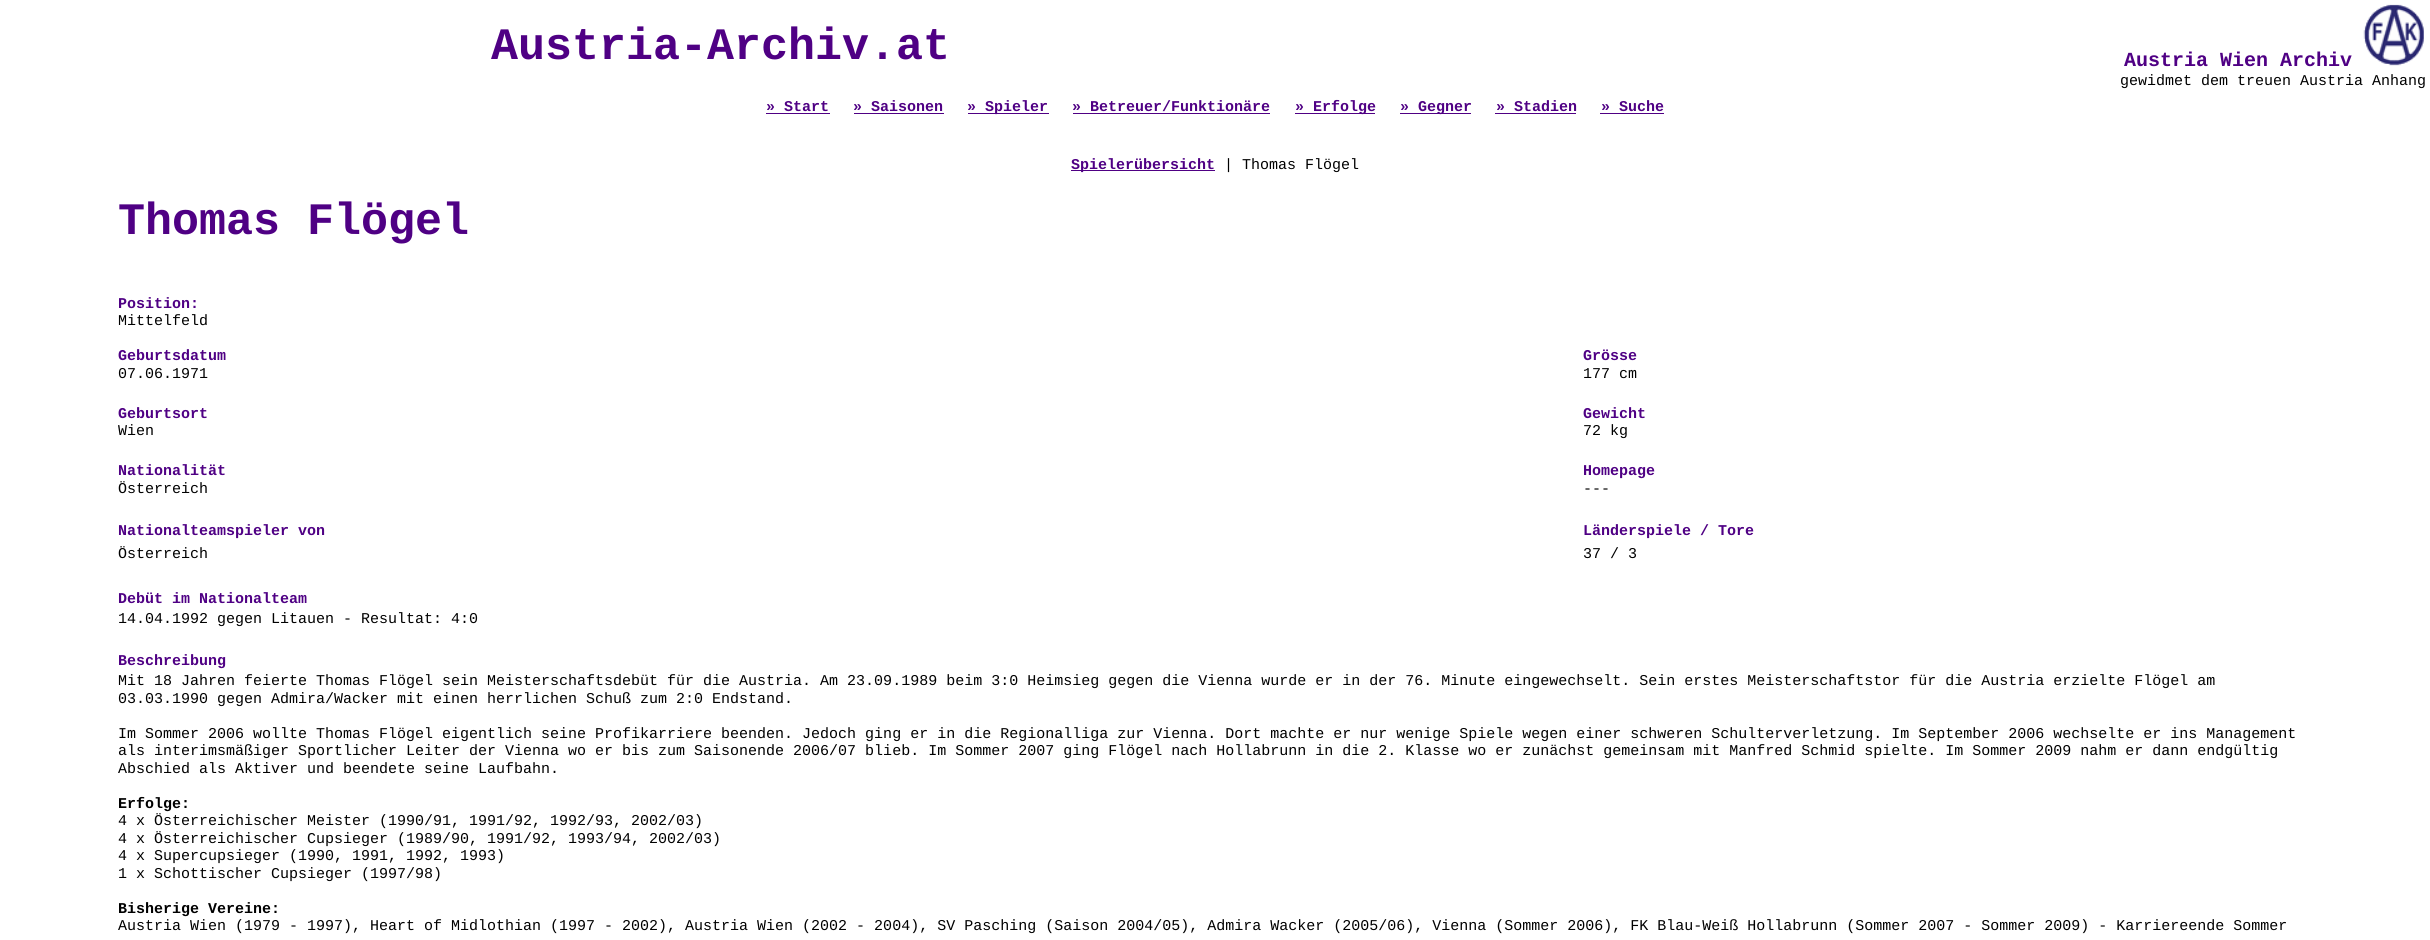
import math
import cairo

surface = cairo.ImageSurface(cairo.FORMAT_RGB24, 2430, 940)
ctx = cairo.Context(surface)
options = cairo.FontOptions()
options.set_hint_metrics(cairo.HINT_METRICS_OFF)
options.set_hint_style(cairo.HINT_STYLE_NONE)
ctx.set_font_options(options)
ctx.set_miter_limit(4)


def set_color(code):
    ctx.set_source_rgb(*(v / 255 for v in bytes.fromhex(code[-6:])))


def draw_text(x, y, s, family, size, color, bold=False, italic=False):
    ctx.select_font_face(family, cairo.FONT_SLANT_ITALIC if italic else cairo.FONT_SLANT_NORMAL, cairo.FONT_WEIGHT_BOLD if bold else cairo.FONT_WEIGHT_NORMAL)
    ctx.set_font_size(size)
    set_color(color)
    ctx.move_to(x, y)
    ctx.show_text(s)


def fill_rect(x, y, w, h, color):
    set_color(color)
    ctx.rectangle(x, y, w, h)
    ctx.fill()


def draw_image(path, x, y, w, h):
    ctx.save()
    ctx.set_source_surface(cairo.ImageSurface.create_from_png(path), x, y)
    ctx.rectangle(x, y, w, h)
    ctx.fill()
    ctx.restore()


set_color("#ffffff")
ctx.paint()
draw_text(491, 59, "Austria-Archiv.at", "Liberation Mono", 45, "#4f0084", bold=True)
draw_text(2124, 66, "Austria Wien Archiv", "Liberation Mono", 20, "#4f0084", bold=True)
draw_image("assets/img1.png", 2363, 4, 61, 62)
draw_text(2120, 85, "gewidmet dem treuen Austria Anhang", "Liberation Mono", 15, "#000000")
draw_text(766, 111, "» Start", "Liberation Mono", 15, "#4f0084", bold=True)
fill_rect(766, 113, 64, 1, "#4f0084")
draw_text(853, 111, "» Saisonen", "Liberation Mono", 15, "#4f0084", bold=True)
fill_rect(854, 113, 90, 1, "#4f0084")
fill_rect(968, 113, 81, 1, "#4f0084")
draw_text(967, 111, "» Spieler", "Liberation Mono", 15, "#4f0084", bold=True)
draw_text(1072, 111, "» Betreuer/Funktionäre", "Liberation Mono", 15, "#4f0084", bold=True)
fill_rect(1073, 113, 197, 1, "#4f0084")
fill_rect(1295, 113, 80, 1, "#4f0084")
draw_text(1295, 111, "» Erfolge", "Liberation Mono", 15, "#4f0084", bold=True)
fill_rect(1400, 113, 71, 1, "#4f0084")
draw_text(1400, 111, "» Gegner", "Liberation Mono", 15, "#4f0084", bold=True)
draw_text(1496, 111, "» Stadien", "Liberation Mono", 15, "#4f0084", bold=True)
fill_rect(1495, 113, 81, 1, "#4f0084")
draw_text(1601, 111, "» Suche", "Liberation Mono", 15, "#4f0084", bold=True)
fill_rect(1600, 113, 64, 1, "#4f0084")
fill_rect(1071, 170, 144, 1, "#4f0084")
draw_text(1071, 169, "Spielerübersicht", "Liberation Mono", 15, "#4f0084", bold=True)
draw_text(1224, 169, "| Thomas Flögel", "Liberation Mono", 15, "#000000")
draw_text(118, 234, "Thomas Flögel", "Liberation Mono", 45, "#4f0084", bold=True)
draw_text(118, 308, "Position:", "Liberation Mono", 15, "#4f0084", bold=True)
draw_text(118, 325, "Mittelfeld", "Liberation Mono", 15, "#000000")
draw_text(118, 360, "Geburtsdatum", "Liberation Mono", 15, "#4f0084", bold=True)
draw_text(1583, 360, "Grösse", "Liberation Mono", 15, "#4f0084", bold=True)
draw_text(118, 378, "07.06.1971", "Liberation Mono", 15, "#000000")
draw_text(1583, 378, "177 cm", "Liberation Mono", 15, "#000000")
draw_text(118, 418, "Geburtsort", "Liberation Mono", 15, "#4f0084", bold=True)
draw_text(1583, 418, "Gewicht", "Liberation Mono", 15, "#4f0084", bold=True)
draw_text(118, 435, "Wien", "Liberation Mono", 15, "#000000")
draw_text(1583, 435, "72 kg", "Liberation Mono", 15, "#000000")
draw_text(118, 475, "Nationalität", "Liberation Mono", 15, "#4f0084", bold=True)
draw_text(1583, 475, "Homepage", "Liberation Mono", 15, "#4f0084", bold=True)
draw_text(118, 493, "Österreich", "Liberation Mono", 15, "#000000")
draw_text(1583, 493, "---", "Liberation Mono", 15, "#000000")
draw_text(118, 535, "Nationalteamspieler von", "Liberation Mono", 15, "#4f0084", bold=True)
draw_text(1583, 535, "Länderspiele / Tore", "Liberation Mono", 15, "#4f0084", bold=True)
draw_text(118, 558, "Österreich", "Liberation Mono", 15, "#000000")
draw_text(1583, 558, "37 / 3", "Liberation Mono", 15, "#000000")
draw_text(118, 603, "Debüt im Nationalteam", "Liberation Mono", 15, "#4f0084", bold=True)
draw_text(118, 623, "14.04.1992 gegen Litauen - Resultat: 4:0", "Liberation Mono", 15, "#000000")
draw_text(118, 665, "Beschreibung", "Liberation Mono", 15, "#4f0084", bold=True)
draw_text(118, 685, "Mit 18 Jahren feierte Thomas Flögel sein Meisterschaftsdebüt für die Austria. Am 23.09.1989 beim 3:0 Heimsieg gegen die Vienna wurde er in der 76. Minute eingewechselt. Sein erstes Meisterschaftstor für die Austria erzielte Flögel am", "Liberation Mono", 15, "#000000")
draw_text(118, 703, "03.03.1990 gegen Admira/Wacker mit einen herrlichen Schuß zum 2:0 Endstand.", "Liberation Mono", 15, "#000000")
draw_text(118, 738, "Im Sommer 2006 wollte Thomas Flögel eigentlich seine Profikarriere beenden. Jedoch ging er in die Regionalliga zur Vienna. Dort machte er nur wenige Spiele wegen einer schweren Schulterverletzung. Im September 2006 wechselte er ins Management", "Liberation Mono", 15, "#000000")
draw_text(118, 755, "als interimsmäßiger Sportlicher Leiter der Vienna wo er bis zum Saisonende 2006/07 blieb. Im Sommer 2007 ging Flögel nach Hollabrunn in die 2. Klasse wo er zunächst gemeinsam mit Manfred Schmid spielte. Im Sommer 2009 nahm er dann endgültig", "Liberation Mono", 15, "#000000")
draw_text(118, 773, "Abschied als Aktiver und beendete seine Laufbahn.", "Liberation Mono", 15, "#000000")
draw_text(118, 808, "Erfolge:", "Liberation Mono", 15, "#000000", bold=True)
draw_text(118, 825, "4 x Österreichischer Meister (1990/91, 1991/92, 1992/93, 2002/03)", "Liberation Mono", 15, "#000000")
draw_text(118, 843, "4 x Österreichischer Cupsieger (1989/90, 1991/92, 1993/94, 2002/03)", "Liberation Mono", 15, "#000000")
draw_text(118, 860, "4 x Supercupsieger (1990, 1991, 1992, 1993)", "Liberation Mono", 15, "#000000")
draw_text(118, 878, "1 x Schottischer Cupsieger (1997/98)", "Liberation Mono", 15, "#000000")
draw_text(118, 913, "Bisherige Vereine:", "Liberation Mono", 15, "#000000", bold=True)
draw_text(118, 930, "Austria Wien (1979 - 1997), Heart of Midlothian (1997 - 2002), Austria Wien (2002 - 2004), SV Pasching (Saison 2004/05), Admira Wacker (2005/06), Vienna (Sommer 2006), FK Blau-Weiß Hollabrunn (Sommer 2007 - Sommer 2009) - Karriereende Sommer", "Liberation Mono", 15, "#000000")
surface.write_to_png("output.png")
